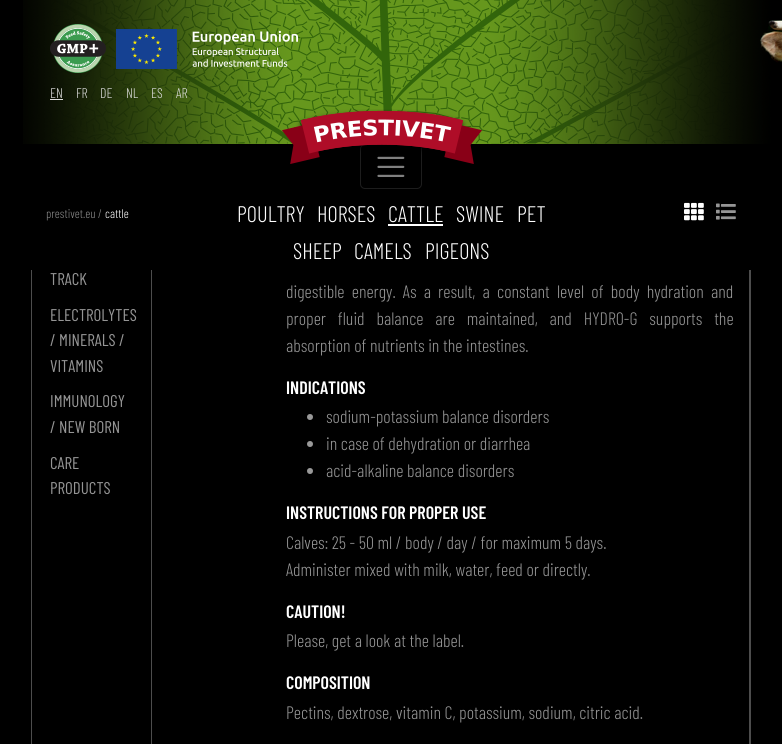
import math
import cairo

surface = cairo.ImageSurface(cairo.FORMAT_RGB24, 782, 744)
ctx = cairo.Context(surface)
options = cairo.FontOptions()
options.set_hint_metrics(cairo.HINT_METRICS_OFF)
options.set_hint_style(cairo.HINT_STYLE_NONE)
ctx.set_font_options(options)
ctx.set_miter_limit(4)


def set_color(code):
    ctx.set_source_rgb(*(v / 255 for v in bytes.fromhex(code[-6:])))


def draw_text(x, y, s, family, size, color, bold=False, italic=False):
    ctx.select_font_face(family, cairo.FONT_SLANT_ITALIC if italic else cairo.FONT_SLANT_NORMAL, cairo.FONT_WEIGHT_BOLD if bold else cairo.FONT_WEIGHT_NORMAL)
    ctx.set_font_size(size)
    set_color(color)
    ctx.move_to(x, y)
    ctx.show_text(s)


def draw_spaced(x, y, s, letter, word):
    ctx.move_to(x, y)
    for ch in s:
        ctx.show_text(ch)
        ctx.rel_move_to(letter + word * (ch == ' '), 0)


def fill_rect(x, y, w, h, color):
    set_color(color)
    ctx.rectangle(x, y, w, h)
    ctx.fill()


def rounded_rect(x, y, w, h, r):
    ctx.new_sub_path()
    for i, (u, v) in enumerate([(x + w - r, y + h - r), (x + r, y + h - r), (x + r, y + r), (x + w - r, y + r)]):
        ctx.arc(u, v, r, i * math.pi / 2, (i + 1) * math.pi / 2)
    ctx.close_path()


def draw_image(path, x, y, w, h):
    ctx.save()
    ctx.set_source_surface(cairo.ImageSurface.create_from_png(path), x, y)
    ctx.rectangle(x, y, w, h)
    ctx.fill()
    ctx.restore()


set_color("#000000")
ctx.paint()
draw_image("assets/img1.png", 23, 0, 759, 270)
draw_image("assets/img2.png", 50, 24, 56, 49)
draw_image("assets/img3.png", 116, 29, 182, 40)
draw_text(50, 98, "EN", "Barlow Condensed Light", 14, "#dddddd")
fill_rect(50, 99, 13, 1, "#dddddd")
draw_text(76, 98, "FR", "Barlow Condensed Light", 14, "#dddddd")
draw_text(100, 98, "DE", "Barlow Condensed Light", 14, "#dddddd")
draw_text(126, 98, "NL", "Barlow Condensed Light", 14, "#dddddd")
draw_text(151, 98, "ES", "Barlow Condensed Light", 14, "#dddddd")
draw_text(176, 98, "AR", "Barlow Condensed Light", 14, "#dddddd")
rounded_rect(360.5, 144.5, 61, 44, 4.5)
set_color("#1d1d1d")
ctx.set_line_width(1)
ctx.stroke()
draw_image("assets/img5.png", 377, 156, 28, 21)
draw_image("assets/img4.png", 282, 109, 200, 55)
draw_text(46, 218, "prestivet.eu /", "Barlow Condensed Light", 12.5, "#8b8b8b")
draw_text(105, 218, "cattle", "Barlow Condensed Light", 12.5, "#ffffff")
draw_text(237, 222, "POULTRY", "Barlow Condensed Light", 22.5, "#ffffff")
draw_text(317, 222, "HORSES", "Barlow Condensed Light", 22.5, "#ffffff")
draw_text(388, 222, "CATTLE", "Barlow Condensed Light", 22.5, "#ffffff")
fill_rect(388, 224, 55, 2, "#ffffff")
draw_text(456, 222, "SWINE", "Barlow Condensed Light", 22.5, "#ffffff")
draw_text(517, 222, "PET", "Barlow Condensed Light", 22.5, "#ffffff")
draw_text(293, 259, "SHEEP", "Barlow Condensed Light", 22.5, "#ffffff")
draw_text(354, 259, "CAMELS", "Barlow Condensed Light", 22.5, "#ffffff")
draw_text(425, 259, "PIGEONS", "Barlow Condensed Light", 22.5, "#ffffff")
draw_image("assets/img6.png", 684, 202, 20, 19)
draw_image("assets/img7.png", 716, 203, 20, 17)
fill_rect(749, 270, 2, 474, "#4d4d4d")
fill_rect(31, 270, 1, 474, "#4d4d4d")
fill_rect(151, 270, 1, 474, "#4d4d4d")
draw_text(50, 285, "TRACK", "Barlow Condensed", 17, "#959595")
draw_text(50, 321, "ELECTROLYTES", "Barlow Condensed", 17, "#959595")
draw_text(50, 346, "/ MINERALS /", "Barlow Condensed", 17, "#959595")
draw_text(50, 372, "VITAMINS", "Barlow Condensed", 17, "#959595")
draw_text(50, 407, "IMMUNOLOGY", "Barlow Condensed", 17, "#959595")
draw_text(50, 433, "/ NEW BORN", "Barlow Condensed", 17, "#959595")
draw_text(50, 469, "CARE", "Barlow Condensed", 17, "#959595")
draw_text(50, 494, "PRODUCTS", "Barlow Condensed", 17, "#959595")
ctx.select_font_face("Barlow Condensed Light")
ctx.set_font_size(18)
draw_spaced(286, 298, "digestible energy. As a result, a constant level of body hydration and", 0, 3.6)
draw_spaced(286, 325, "proper fluid balance are maintained, and HYDRO-G supports the", 0, 8.25)
draw_text(286, 352, "absorption of nutrients in the intestines.", "Barlow Condensed Light", 18, "#959595")
draw_text(286, 394, "INDICATIONS", "Barlow Condensed SemiBold", 18, "#ffffff")
set_color("#999999")
ctx.new_path()
ctx.arc(310, 417, 3, 0, 2 * math.pi)
ctx.fill()
draw_text(326, 423, "sodium-potassium balance disorders", "Barlow Condensed Light", 18, "#959595")
set_color("#999999")
ctx.new_path()
ctx.arc(310, 444, 3, 0, 2 * math.pi)
ctx.fill()
draw_text(326, 450, "in case of dehydration or diarrhea", "Barlow Condensed Light", 18, "#959595")
set_color("#999999")
ctx.new_path()
ctx.arc(310, 471, 3, 0, 2 * math.pi)
ctx.fill()
draw_text(326, 477, "acid-alkaline balance disorders", "Barlow Condensed Light", 18, "#959595")
draw_text(286, 519, "INSTRUCTIONS FOR PROPER USE", "Barlow Condensed SemiBold", 18, "#ffffff")
draw_text(286, 549, "Calves: 25 - 50 ml / body / day / for maximum 5 days.", "Barlow Condensed Light", 18, "#959595")
draw_text(286, 576, "Administer mixed with milk, water, feed or directly.", "Barlow Condensed Light", 18, "#959595")
draw_text(286, 618, "CAUTION!", "Barlow Condensed SemiBold", 18, "#ffffff")
draw_text(286, 647, "Please, get a look at the label.", "Barlow Condensed Light", 18, "#959595")
draw_text(286, 689, "COMPOSITION", "Barlow Condensed SemiBold", 18, "#ffffff")
draw_text(286, 719, "Pectins, dextrose, vitamin C, potassium, sodium, citric acid.", "Barlow Condensed Light", 18, "#959595")
surface.write_to_png("output.png")
